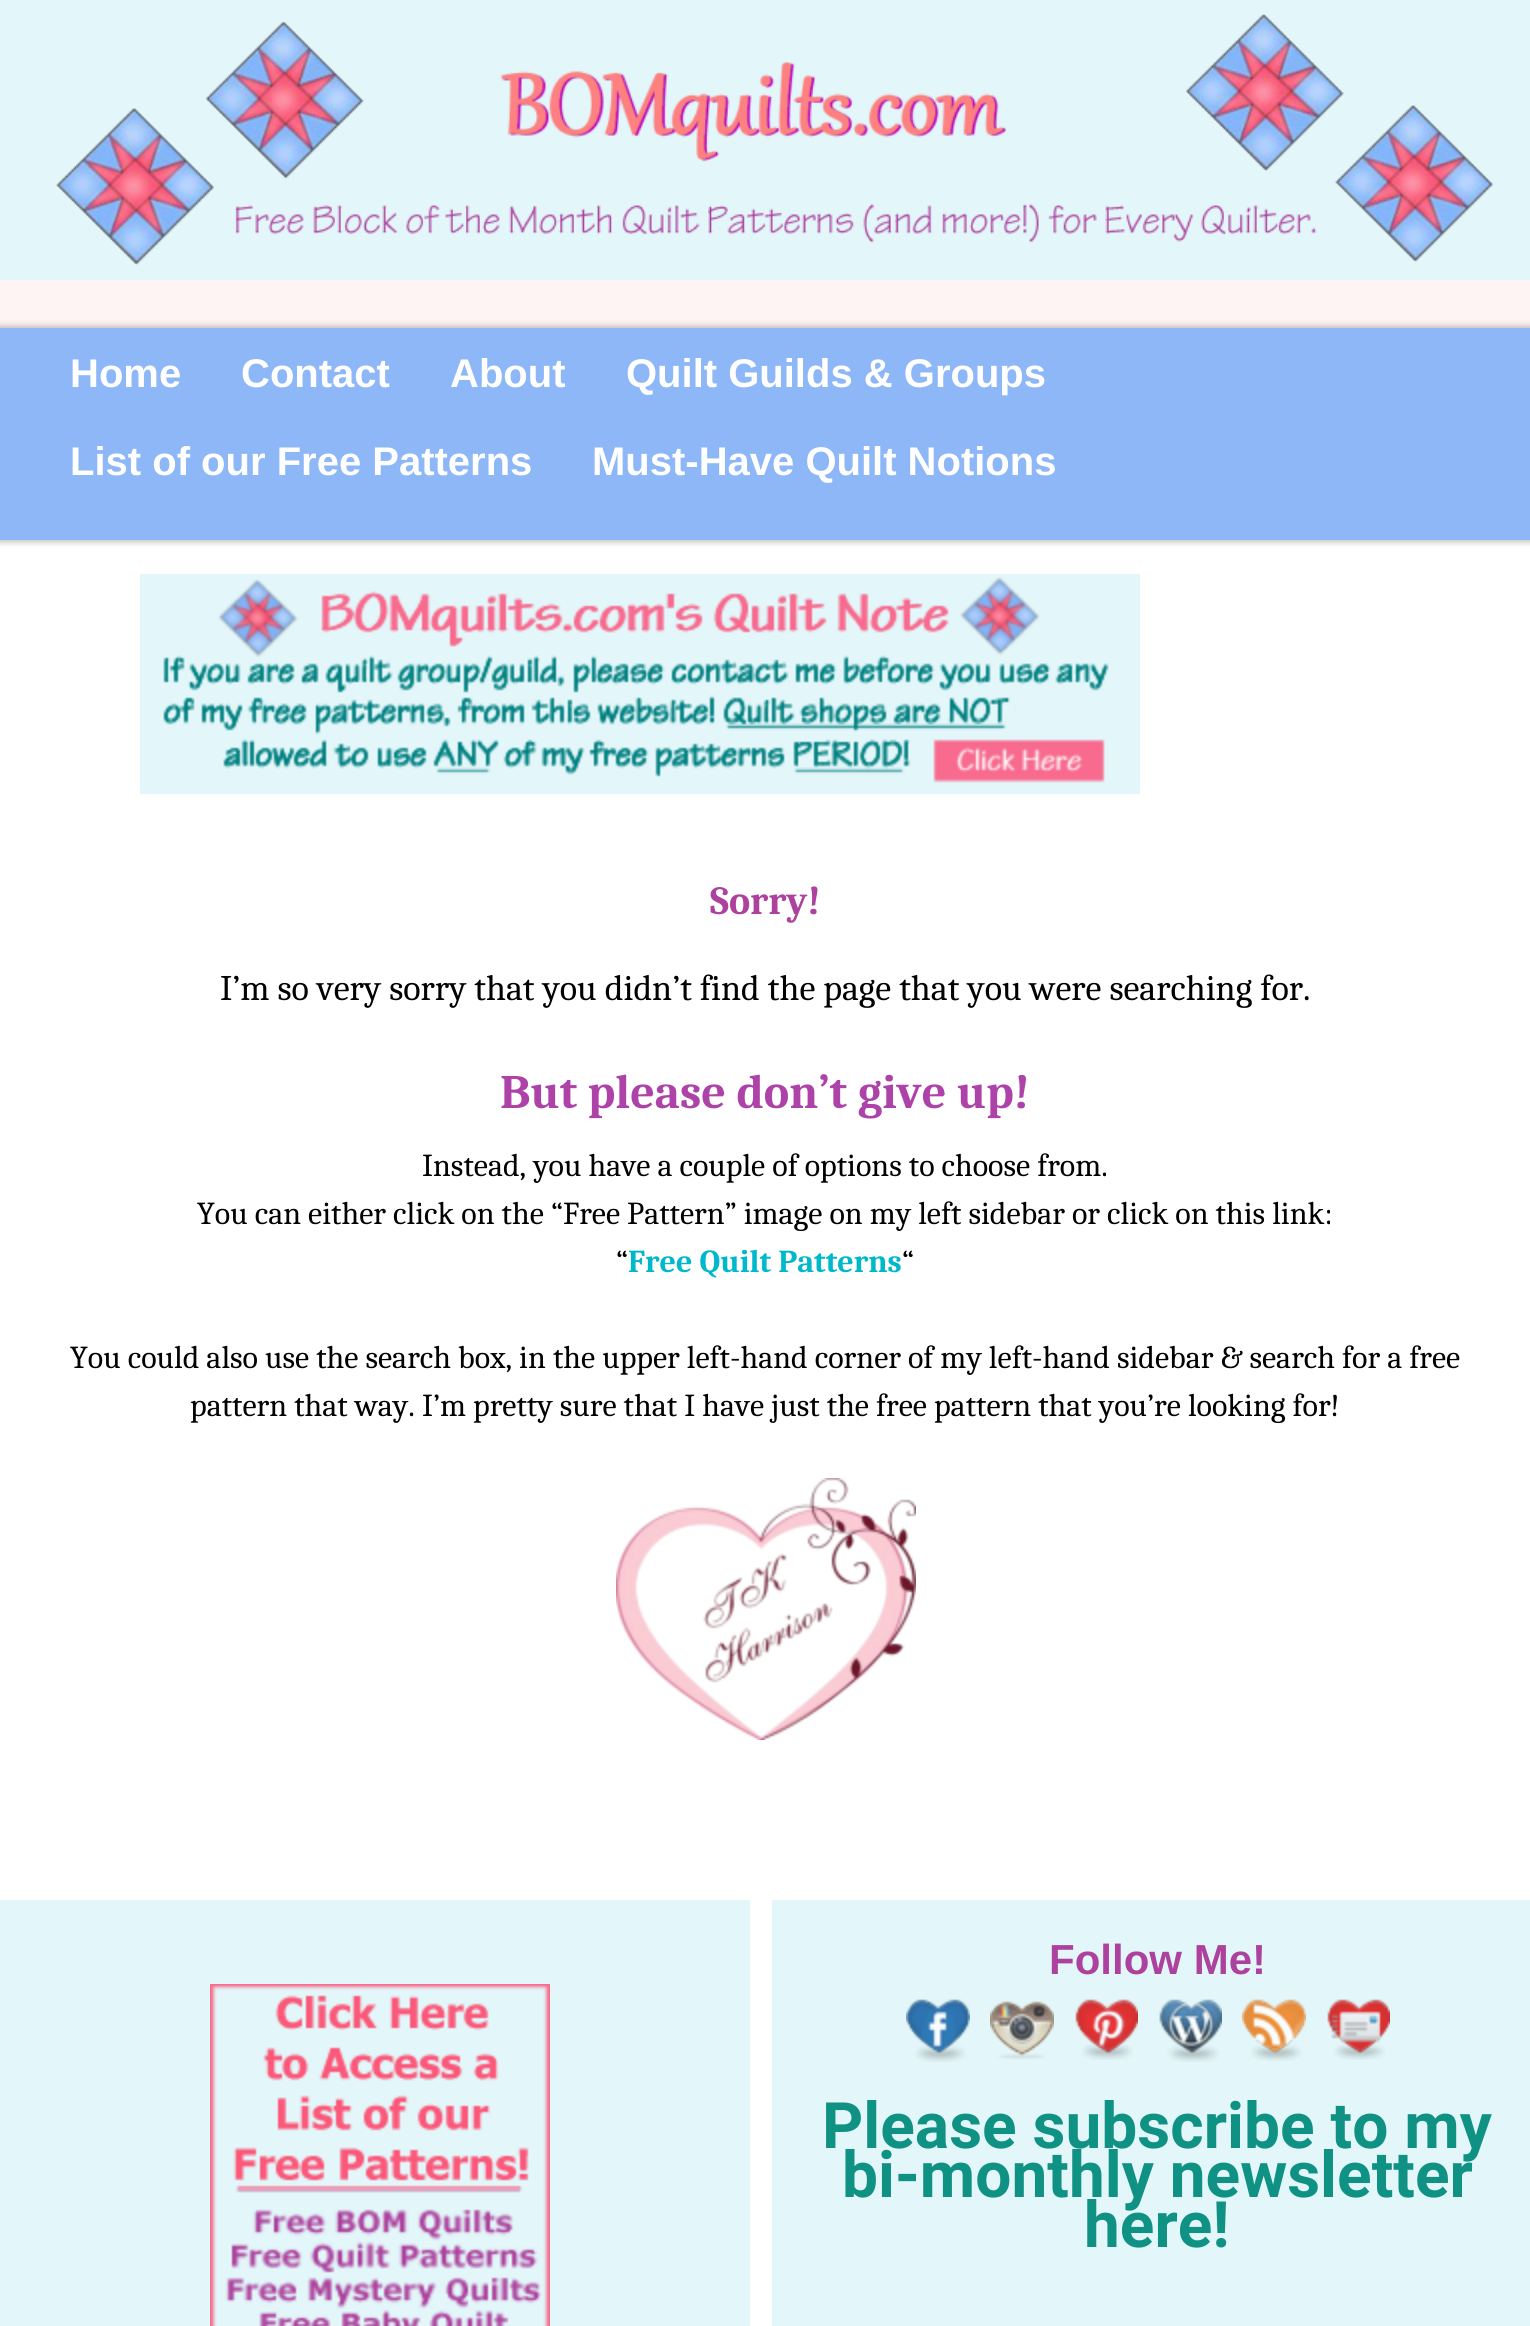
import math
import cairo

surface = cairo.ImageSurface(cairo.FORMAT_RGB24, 1530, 2326)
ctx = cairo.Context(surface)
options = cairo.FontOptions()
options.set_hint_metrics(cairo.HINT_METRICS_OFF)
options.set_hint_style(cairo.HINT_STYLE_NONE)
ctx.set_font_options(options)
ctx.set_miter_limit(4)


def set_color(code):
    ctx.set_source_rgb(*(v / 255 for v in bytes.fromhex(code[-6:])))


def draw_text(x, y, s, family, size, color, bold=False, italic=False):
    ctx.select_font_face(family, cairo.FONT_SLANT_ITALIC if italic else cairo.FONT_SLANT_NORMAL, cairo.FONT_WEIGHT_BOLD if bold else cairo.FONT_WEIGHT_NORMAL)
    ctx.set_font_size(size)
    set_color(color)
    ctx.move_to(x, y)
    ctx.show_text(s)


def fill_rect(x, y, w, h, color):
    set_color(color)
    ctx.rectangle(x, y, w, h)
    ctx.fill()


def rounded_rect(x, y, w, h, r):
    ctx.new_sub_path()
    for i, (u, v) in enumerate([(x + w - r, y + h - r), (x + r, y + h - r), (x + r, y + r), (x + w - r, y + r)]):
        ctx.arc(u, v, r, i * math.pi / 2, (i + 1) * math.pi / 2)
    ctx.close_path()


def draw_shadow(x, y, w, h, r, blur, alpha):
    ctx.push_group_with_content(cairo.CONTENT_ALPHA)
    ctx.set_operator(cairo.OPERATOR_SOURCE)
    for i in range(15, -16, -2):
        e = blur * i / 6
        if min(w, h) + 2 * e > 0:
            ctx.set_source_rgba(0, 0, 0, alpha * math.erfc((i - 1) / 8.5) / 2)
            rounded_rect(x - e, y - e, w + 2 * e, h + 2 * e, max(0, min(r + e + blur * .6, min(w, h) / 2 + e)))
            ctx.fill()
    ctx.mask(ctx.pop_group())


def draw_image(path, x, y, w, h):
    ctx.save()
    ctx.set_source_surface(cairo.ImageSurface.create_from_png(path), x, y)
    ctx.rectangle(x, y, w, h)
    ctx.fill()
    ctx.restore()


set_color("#fff4f4")
ctx.paint()
draw_image("assets/img1.png", 0, 0, 1530, 280)
fill_rect(0, 540, 1530, 1786, "#ffffff")
set_color("#000000")
draw_shadow(-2, 326, 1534, 216, 0, 3, 0.25)
fill_rect(0, 328, 1530, 212, "#8db7f7")
draw_text(70, 387, "Home", "Liberation Sans", 40, "#ffffff", bold=True)
draw_text(241, 387, "Contact", "Liberation Sans", 40, "#ffffff", bold=True)
draw_text(450, 387, "About", "Liberation Sans", 40, "#ffffff", bold=True)
draw_text(626, 387, "Quilt Guilds & Groups", "Liberation Sans", 40, "#ffffff", bold=True)
draw_text(70, 475, "List of our Free Patterns", "Liberation Sans", 40, "#ffffff", bold=True)
draw_text(592, 475, "Must-Have Quilt Notions", "Liberation Sans", 40, "#ffffff", bold=True)
draw_image("assets/img2.png", 140, 574, 1000, 220)
draw_text(710, 914, "Sorry!", "Caladea", 40, "#ad429e", bold=True)
draw_text(220, 1000, "I’m so very sorry that you didn’t find the page that you were searching for.", "Caladea", 36, "#000000")
draw_text(500, 1108, "But please don’t give up!", "Caladea", 48, "#ad42a8", bold=True)
draw_text(422, 1176, "Instead, you have a couple of options to choose from.", "Caladea", 32, "#000000")
draw_text(197, 1224, "You can either click on the “Free Pattern” image on my left sidebar or click on this link:", "Caladea", 32, "#000000")
draw_text(616, 1272, "“", "Caladea", 32, "#000000")
draw_text(628, 1272, "Free Quilt Patterns", "Caladea", 32, "#00b8cc", bold=True)
draw_text(902, 1272, "“", "Caladea", 32, "#000000")
draw_text(70, 1368, "You could also use the search box, in the upper left-hand corner of my left-hand sidebar & search for a free", "Caladea", 32, "#000000")
draw_text(190, 1416, "pattern that way. I’m pretty sure that I have just the free pattern that you’re looking for!", "Caladea", 32, "#000000")
draw_image("assets/img3.png", 616, 1478, 300, 262)
fill_rect(0, 1900, 750, 426, "#e3f6f9")
draw_image("assets/img4.png", 210, 1984, 340, 342)
fill_rect(772, 1900, 758, 426, "#e3f6f9")
draw_text(1049, 1974, "Follow Me!", "Liberation Sans", 42, "#ad429e", bold=True)
draw_image("assets/img5.png", 906, 1999, 64, 63)
draw_image("assets/img6.png", 990, 2001, 64, 59)
draw_image("assets/img7.png", 1075, 1999, 63, 61)
draw_image("assets/img8.png", 1159, 1999, 63, 63)
draw_image("assets/img9.png", 1242, 1999, 64, 62)
draw_image("assets/img10.png", 1327, 1999, 63, 61)
draw_text(822, 2148, "Please subscribe to my", "Roboto", 64, "#0f9284", bold=True)
draw_text(842, 2197, "bi-monthly newsletter", "Roboto", 64, "#0f9284", bold=True)
draw_text(1084, 2247, "here!", "Roboto", 64, "#0f9284", bold=True)
surface.write_to_png("output.png")
